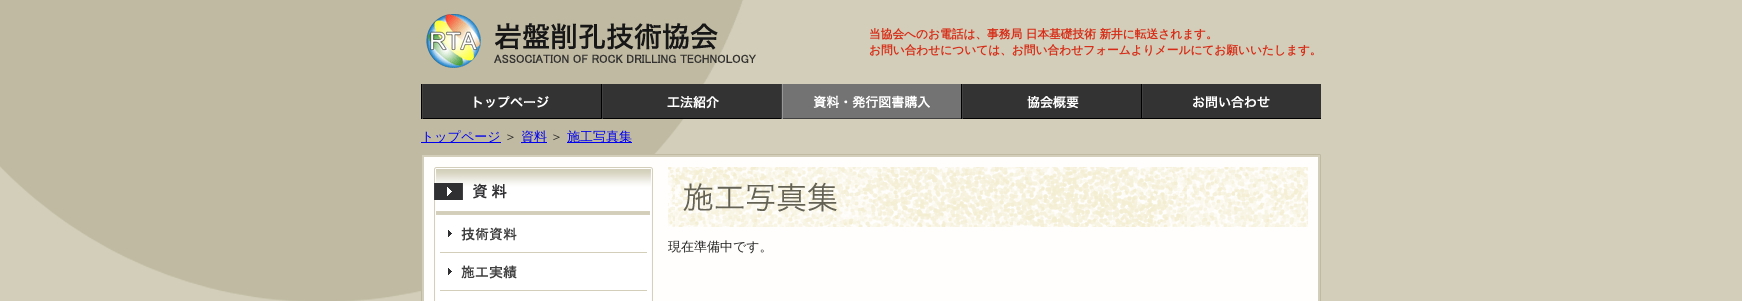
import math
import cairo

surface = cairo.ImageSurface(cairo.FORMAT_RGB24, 1742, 301)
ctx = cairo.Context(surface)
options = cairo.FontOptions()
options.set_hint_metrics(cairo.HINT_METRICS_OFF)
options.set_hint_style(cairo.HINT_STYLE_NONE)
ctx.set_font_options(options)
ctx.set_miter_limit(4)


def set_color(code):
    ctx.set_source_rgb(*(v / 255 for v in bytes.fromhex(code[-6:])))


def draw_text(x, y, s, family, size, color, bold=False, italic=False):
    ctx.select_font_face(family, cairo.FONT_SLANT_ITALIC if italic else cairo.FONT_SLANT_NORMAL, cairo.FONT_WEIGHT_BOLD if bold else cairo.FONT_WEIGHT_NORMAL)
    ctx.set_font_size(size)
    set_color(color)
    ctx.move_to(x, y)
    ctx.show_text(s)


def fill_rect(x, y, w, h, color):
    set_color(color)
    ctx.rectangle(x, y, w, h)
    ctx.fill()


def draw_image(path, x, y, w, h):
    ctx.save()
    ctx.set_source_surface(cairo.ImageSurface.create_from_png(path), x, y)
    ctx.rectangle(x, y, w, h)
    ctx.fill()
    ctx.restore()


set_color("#ffffff")
ctx.paint()
draw_image("assets/img1.png", 0, 0, 1742, 301)
draw_image("assets/img2.png", 426, 0, 330, 84)
draw_text(869, 38, "当協会へのお電話は、事務局 日本基礎技術 新井に転送されます。", "WenQuanYi Zen Hei", 11.7, "#d72d18", bold=True)
draw_text(869, 54, "お問い合わせについては、お問い合わせフォームよりメールにてお願いいたします。", "WenQuanYi Zen Hei", 11.7, "#d72d18", bold=True)
draw_image("assets/img3.png", 421, 84, 180, 35)
draw_image("assets/img4.png", 601, 84, 180, 35)
draw_image("assets/img5.png", 781, 84, 180, 35)
draw_image("assets/img6.png", 961, 84, 180, 35)
draw_image("assets/img7.png", 1141, 84, 180, 35)
draw_image("assets/img8.png", 422, 154, 899, 13)
fill_rect(421, 142, 80, 1, "#0000ee")
draw_text(421, 141, "トップページ", "WenQuanYi Zen Hei Medium", 13, "#0000ee")
draw_text(504, 141, "＞", "WenQuanYi Zen Hei Medium", 13, "#242424")
fill_rect(521, 142, 26, 1, "#0000ee")
draw_text(521, 141, "資料", "WenQuanYi Zen Hei Medium", 13, "#0000ee")
draw_text(550, 141, "＞", "WenQuanYi Zen Hei Medium", 13, "#242424")
fill_rect(567, 142, 65, 1, "#0000ee")
draw_text(567, 141, "施工写真集", "WenQuanYi Zen Hei Medium", 13, "#0000ee")
draw_image("assets/img9.png", 421, 167, 900, 134)
draw_image("assets/img10.png", 434, 167, 219, 48)
draw_image("assets/img11.png", 434, 215, 219, 38)
draw_image("assets/img12.png", 434, 253, 219, 38)
draw_image("assets/img13.png", 434, 291, 219, 10)
draw_image("assets/img14.png", 668, 167, 640, 60)
draw_text(668, 251, "現在準備中です。", "WenQuanYi Zen Hei Medium", 13, "#242424")
surface.write_to_png("output.png")
